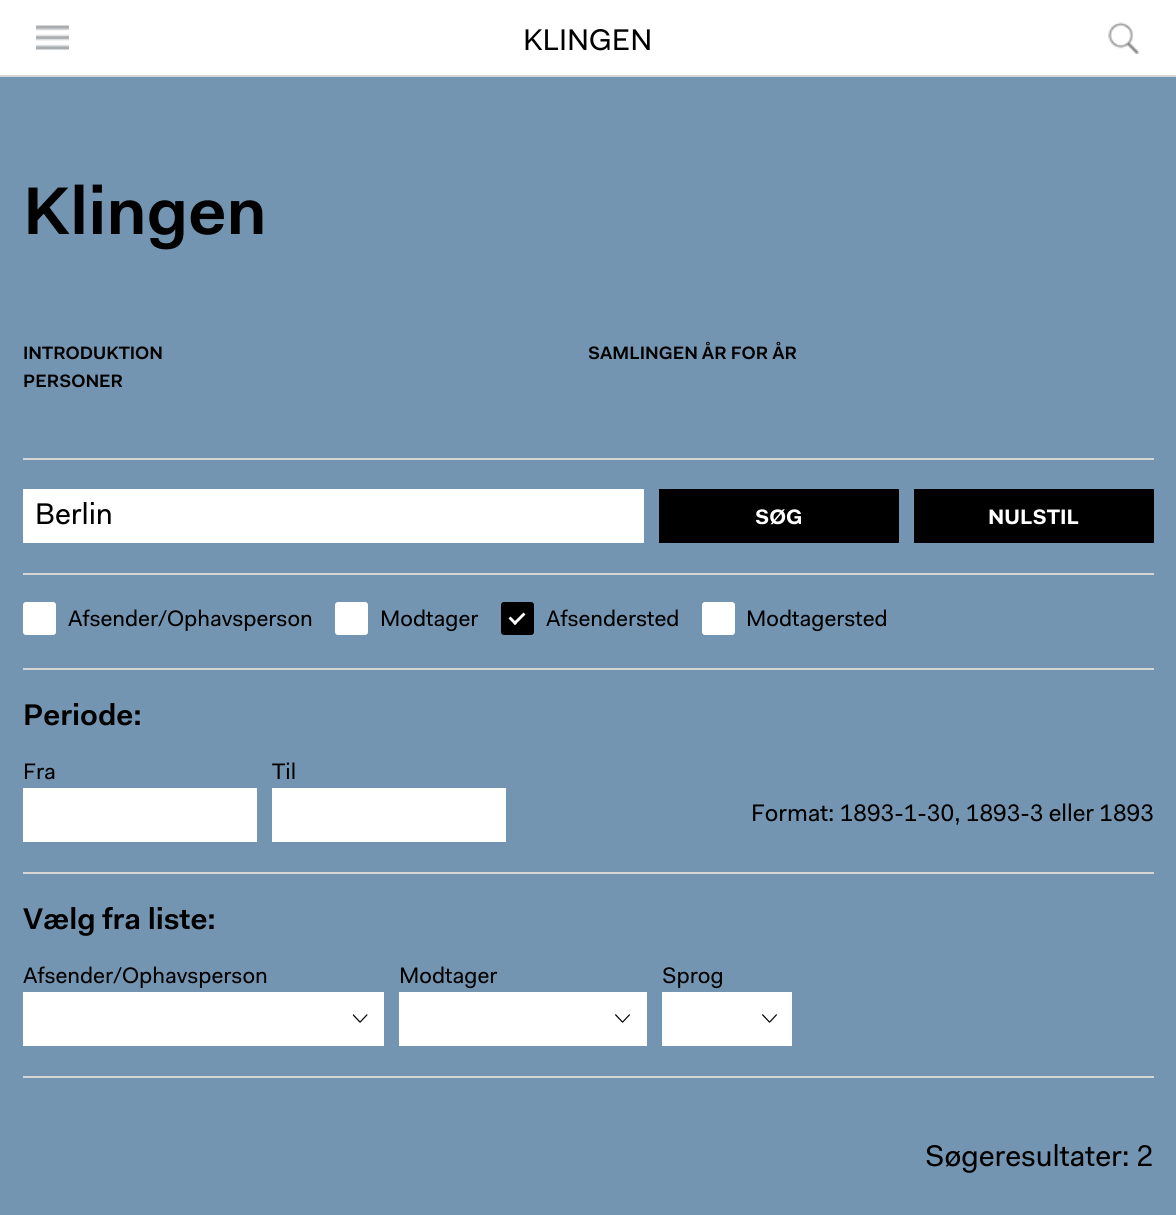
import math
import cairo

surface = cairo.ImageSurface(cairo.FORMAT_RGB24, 1176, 1215)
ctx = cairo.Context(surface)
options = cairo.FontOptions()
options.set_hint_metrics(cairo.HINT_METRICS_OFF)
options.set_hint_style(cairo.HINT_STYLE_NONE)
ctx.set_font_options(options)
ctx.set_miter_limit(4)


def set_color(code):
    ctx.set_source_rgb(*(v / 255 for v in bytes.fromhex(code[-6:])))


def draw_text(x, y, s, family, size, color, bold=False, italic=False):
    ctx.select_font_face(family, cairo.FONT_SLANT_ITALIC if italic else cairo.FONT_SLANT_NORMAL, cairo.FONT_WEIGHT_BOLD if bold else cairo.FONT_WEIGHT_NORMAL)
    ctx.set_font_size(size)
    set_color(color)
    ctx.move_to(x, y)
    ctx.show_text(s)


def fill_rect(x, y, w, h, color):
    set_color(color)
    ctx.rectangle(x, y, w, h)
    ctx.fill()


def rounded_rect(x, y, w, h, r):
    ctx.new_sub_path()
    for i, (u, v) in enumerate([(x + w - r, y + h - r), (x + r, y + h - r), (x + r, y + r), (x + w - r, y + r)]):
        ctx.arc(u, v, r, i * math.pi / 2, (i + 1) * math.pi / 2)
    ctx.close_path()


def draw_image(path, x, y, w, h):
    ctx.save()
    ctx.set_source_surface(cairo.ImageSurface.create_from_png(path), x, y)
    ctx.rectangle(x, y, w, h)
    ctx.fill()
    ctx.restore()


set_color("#ffffff")
ctx.paint()
fill_rect(0, 75, 1176, 2, "#d5d5d5")
draw_image("assets/img1.png", 36, 25, 33, 25)
draw_text(523, 50, "KLINGEN", "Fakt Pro", 30, "#000000")
draw_image("assets/img2.png", 1108, 22, 31, 32)
fill_rect(0, 77, 1176, 1138, "#7495b1")
draw_text(23, 234, "Klingen", "Fakt Pro SemiBold", 67.5, "#000000")
draw_text(23, 359, "INTRODUKTION", "Fakt Pro SemiBold", 18, "#000000")
draw_text(588, 359, "SAMLINGEN ÅR FOR ÅR", "Fakt Pro SemiBold", 18, "#000000")
draw_text(23, 387, "PERSONER", "Fakt Pro SemiBold", 18, "#000000")
fill_rect(23, 458, 1131, 2, "#d5d5d5")
fill_rect(23, 573, 1131, 2, "#d5d5d5")
fill_rect(23, 489, 621, 54, "#ffffff")
draw_text(35, 524, "Berlin", "Fakt Pro", 30, "#000000")
fill_rect(659, 489, 240, 54, "#000000")
draw_text(755, 524, "SØG", "Fakt Pro", 21, "#ffffff", bold=True)
fill_rect(914, 489, 240, 54, "#000000")
draw_text(988, 524, "NULSTIL", "Fakt Pro", 21, "#ffffff", bold=True)
fill_rect(23, 668, 1131, 2, "#d5d5d5")
set_color("#ffffff")
rounded_rect(24, 603, 31, 31, 2)
ctx.fill_preserve()
ctx.stroke()
draw_text(68, 626, "Afsender/Ophavsperson", "Fakt Pro", 22.5, "#000000")
set_color("#ffffff")
rounded_rect(336, 603, 31, 31, 2)
ctx.fill_preserve()
ctx.stroke()
draw_text(380, 626, "Modtager", "Fakt Pro", 22.5, "#000000")
rounded_rect(502, 603, 31, 31, 2)
ctx.fill_preserve()
ctx.stroke()
set_color("#ffffff")
ctx.new_path()
ctx.move_to(523.5, 612.5)
ctx.line_to(525.5, 614.5)
ctx.line_to(515, 625)
ctx.line_to(513, 623)
ctx.close_path()
ctx.fill()
ctx.new_path()
ctx.move_to(510.5, 616.5)
ctx.line_to(517, 623)
ctx.line_to(515, 625)
ctx.line_to(508.5, 618.5)
ctx.close_path()
ctx.fill()
draw_text(546, 626, "Afsendersted", "Fakt Pro", 22.5, "#000000")
set_color("#ffffff")
rounded_rect(703, 603, 31, 31, 2)
ctx.fill_preserve()
ctx.stroke()
draw_text(746, 626, "Modtagersted", "Fakt Pro", 22.5, "#000000")
fill_rect(23, 872, 1131, 2, "#d5d5d5")
draw_text(23, 725, "Periode:", "Fakt Pro SemiBold", 30, "#000000")
draw_text(23, 779, "Fra", "Fakt Pro", 22.5, "#000000")
fill_rect(23, 788, 234, 54, "#ffffff")
draw_text(272, 779, "Til", "Fakt Pro", 22.5, "#000000")
fill_rect(272, 788, 234, 54, "#ffffff")
draw_text(751, 821, "Format: 1893-1-30, 1893-3 eller 1893", "Fakt Pro", 24, "#000000")
fill_rect(23, 1076, 1131, 2, "#d5d5d5")
draw_text(23, 929, "Vælg fra liste:", "Fakt Pro SemiBold", 30, "#000000")
draw_text(23, 983, "Afsender/Ophavsperson", "Fakt Pro", 22.5, "#000000")
fill_rect(23, 992, 361, 54, "#ffffff")
draw_image("assets/img3.png", 353, 1014, 15, 9)
draw_text(399, 983, "Modtager", "Fakt Pro", 22.5, "#000000")
fill_rect(399, 992, 248, 54, "#ffffff")
draw_image("assets/img4.png", 615, 1014, 15, 9)
draw_text(662, 983, "Sprog", "Fakt Pro", 22.5, "#000000")
fill_rect(662, 992, 130, 54, "#ffffff")
draw_image("assets/img4.png", 762, 1014, 15, 9)
draw_text(925, 1166, "Søgeresultater: 2", "Fakt Pro", 30, "#000000")
surface.write_to_png("output.png")
